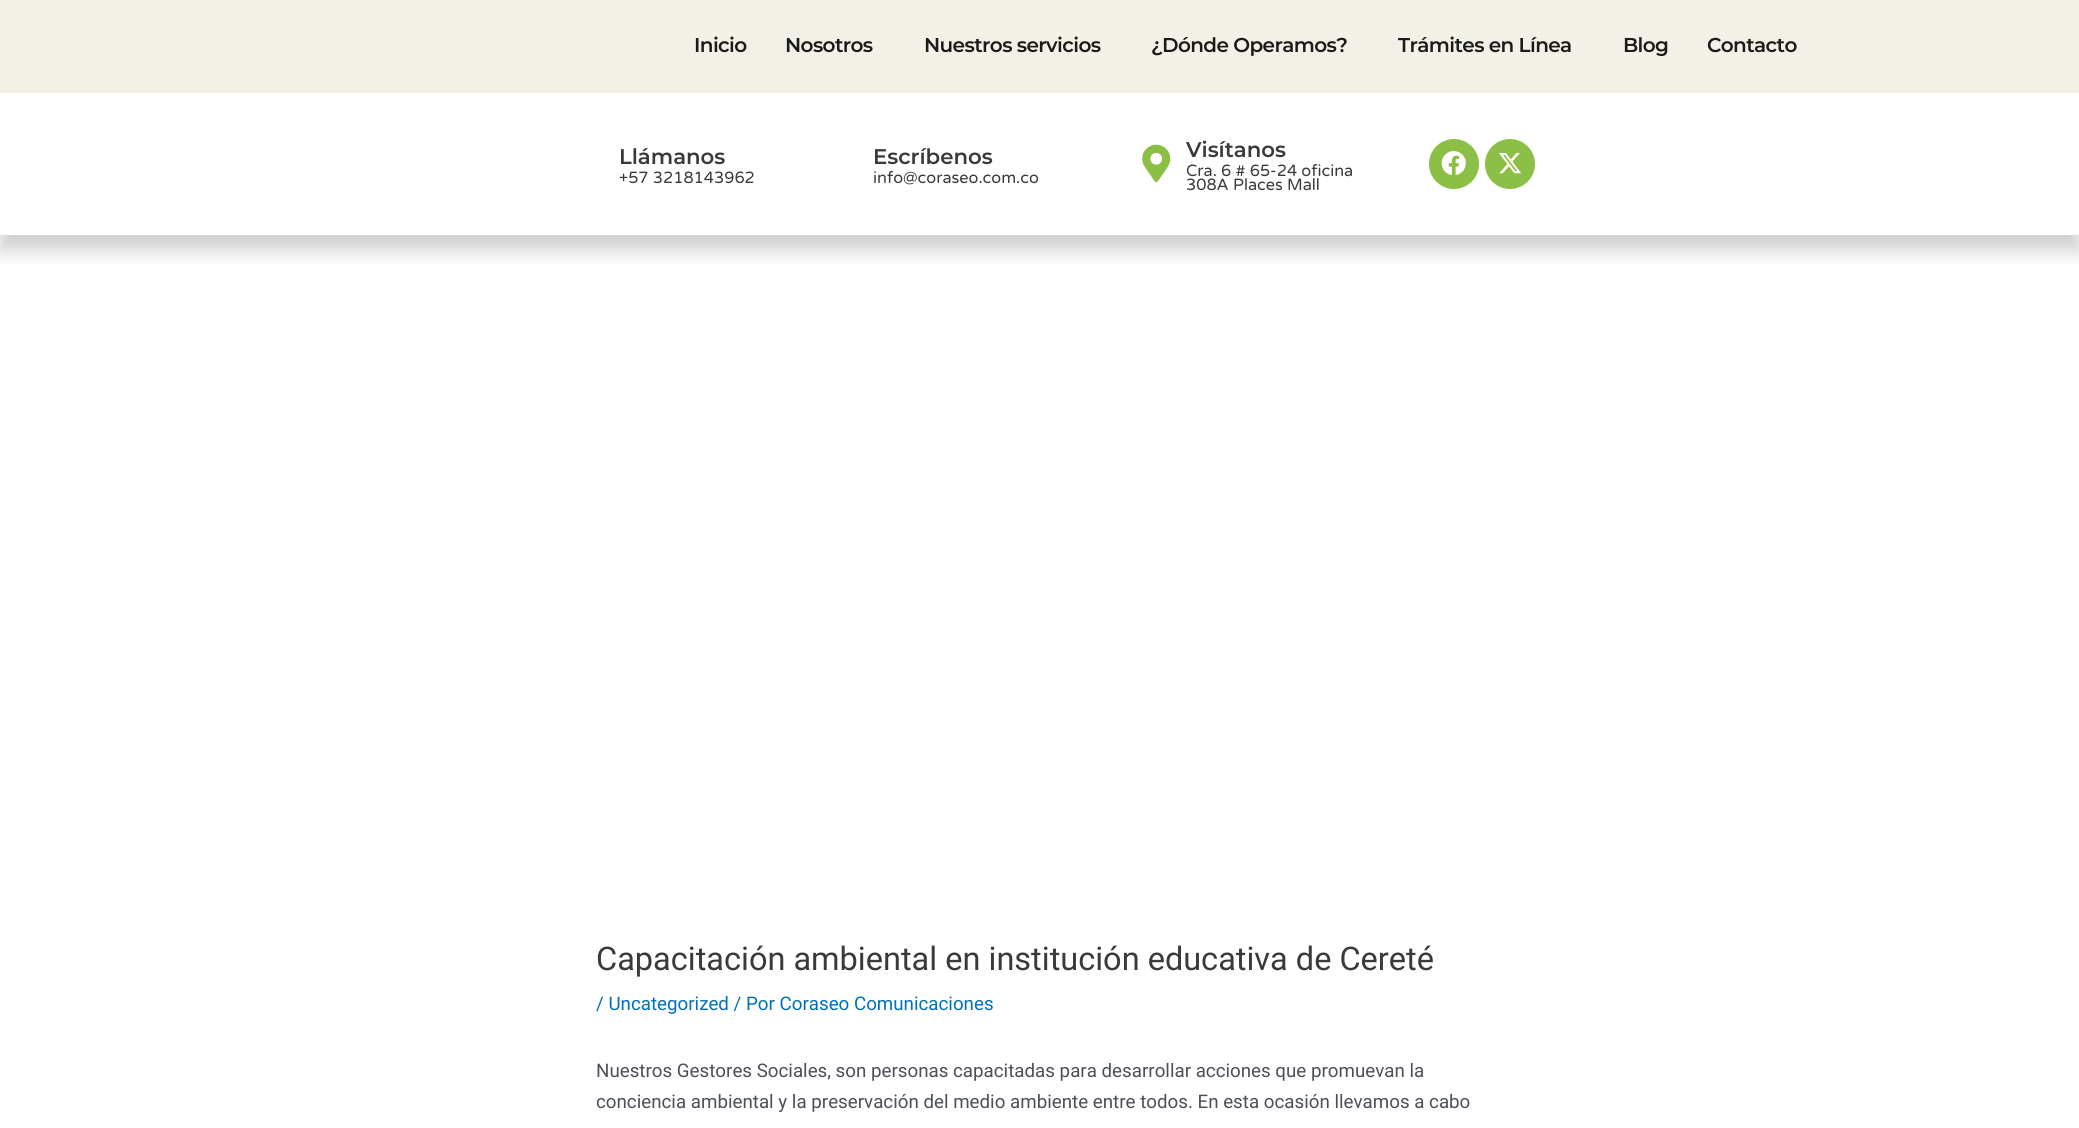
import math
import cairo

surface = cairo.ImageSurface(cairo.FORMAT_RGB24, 2079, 1128)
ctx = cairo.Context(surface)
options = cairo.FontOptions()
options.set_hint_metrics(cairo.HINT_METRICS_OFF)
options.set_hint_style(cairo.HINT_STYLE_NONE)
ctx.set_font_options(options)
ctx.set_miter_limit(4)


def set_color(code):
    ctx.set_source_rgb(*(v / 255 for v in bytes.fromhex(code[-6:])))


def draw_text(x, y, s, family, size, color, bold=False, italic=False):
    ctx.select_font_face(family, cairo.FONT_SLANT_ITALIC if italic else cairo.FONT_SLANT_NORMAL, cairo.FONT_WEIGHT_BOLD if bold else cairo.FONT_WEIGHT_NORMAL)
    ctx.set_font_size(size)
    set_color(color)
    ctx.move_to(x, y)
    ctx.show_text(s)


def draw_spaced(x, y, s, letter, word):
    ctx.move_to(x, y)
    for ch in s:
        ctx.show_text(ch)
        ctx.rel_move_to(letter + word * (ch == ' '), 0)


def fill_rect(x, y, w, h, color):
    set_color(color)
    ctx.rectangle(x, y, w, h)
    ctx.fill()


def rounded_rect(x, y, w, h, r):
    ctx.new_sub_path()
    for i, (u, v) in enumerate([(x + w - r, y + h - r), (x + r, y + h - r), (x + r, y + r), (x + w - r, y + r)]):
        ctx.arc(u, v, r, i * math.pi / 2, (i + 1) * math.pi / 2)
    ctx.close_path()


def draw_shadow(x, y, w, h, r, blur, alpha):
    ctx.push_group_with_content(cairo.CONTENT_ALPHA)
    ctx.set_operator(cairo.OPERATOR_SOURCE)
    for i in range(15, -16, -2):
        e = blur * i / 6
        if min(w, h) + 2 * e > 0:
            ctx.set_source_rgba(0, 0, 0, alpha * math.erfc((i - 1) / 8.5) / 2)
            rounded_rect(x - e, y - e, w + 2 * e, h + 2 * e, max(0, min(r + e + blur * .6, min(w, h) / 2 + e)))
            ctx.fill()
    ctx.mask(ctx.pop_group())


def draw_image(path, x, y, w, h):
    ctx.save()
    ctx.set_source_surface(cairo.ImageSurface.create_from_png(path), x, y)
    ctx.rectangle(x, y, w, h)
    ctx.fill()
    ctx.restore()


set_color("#ffffff")
ctx.paint()
ctx.save()
ctx.rectangle(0, 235, 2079, 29)
ctx.clip()
set_color("#000000")
draw_shadow(0, 108, 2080, 142, 0, 11, 0.2)
ctx.restore()
fill_rect(0, 0, 2079, 93, "#f3f1e7")
ctx.select_font_face("Montserrat SemiBold")
ctx.set_font_size(20)
set_color("#1b1b1b")
draw_spaced(694, 52, "Inicio", -0.6, 0)
draw_spaced(785, 52, "Nosotros", -0.6, 0)
draw_spaced(924, 52, "Nuestros servicios", -0.6, 0)
draw_spaced(1151, 52, "¿Dónde Operamos?", -0.6, 0)
draw_spaced(1398, 52, "Trámites en Línea", -0.6, 0)
draw_spaced(1623, 52, "Blog", -0.6, 0)
draw_spaced(1707, 52, "Contacto", -0.6, 0)
draw_text(619, 164, "Llámanos", "Montserrat SemiBold", 21.25, "#3a3a3a")
draw_text(619, 183, "+57 3218143962", "Varela Round", 16.25, "#3a3a3a")
draw_text(873, 164, "Escríbenos", "Montserrat SemiBold", 21.25, "#3a3a3a")
draw_text(873, 183, "info@coraseo.com.co", "Varela Round", 16.25, "#3a3a3a")
draw_image("assets/img1.png", 1142, 144, 29, 39)
draw_text(1186, 157, "Visítanos", "Montserrat SemiBold", 21.25, "#3a3a3a")
draw_text(1186, 176, "Cra. 6 # 65-24 oficina", "Varela Round", 16.25, "#3a3a3a")
draw_text(1186, 190, "308A Places Mall", "Varela Round", 16.25, "#3a3a3a")
set_color("#8cbf45")
ctx.new_path()
ctx.arc(1454, 164, 25, 0, 2 * math.pi)
ctx.fill()
draw_image("assets/img2.png", 1441, 151, 25, 24)
ctx.arc(1510, 164, 25, 0, 2 * math.pi)
ctx.fill()
draw_image("assets/img3.png", 1499, 153, 23, 21)
draw_text(596, 970, "Capacitación ambiental en institución educativa de Cereté", "Roboto", 32.5, "#3a3a3a")
draw_text(596, 1010, "/ Uncategorized / Por Coraseo Comunicaciones", "Roboto", 18.75, "#0170b9")
draw_text(596, 1077, "Nuestros Gestores Sociales, son personas capacitadas para desarrollar acciones que promuevan la", "Roboto", 18.75, "#4b4f58")
draw_text(596, 1108, "conciencia ambiental y la preservación del medio ambiente entre todos. En esta ocasión llevamos a cabo", "Roboto", 18.75, "#4b4f58")
surface.write_to_png("output.png")
